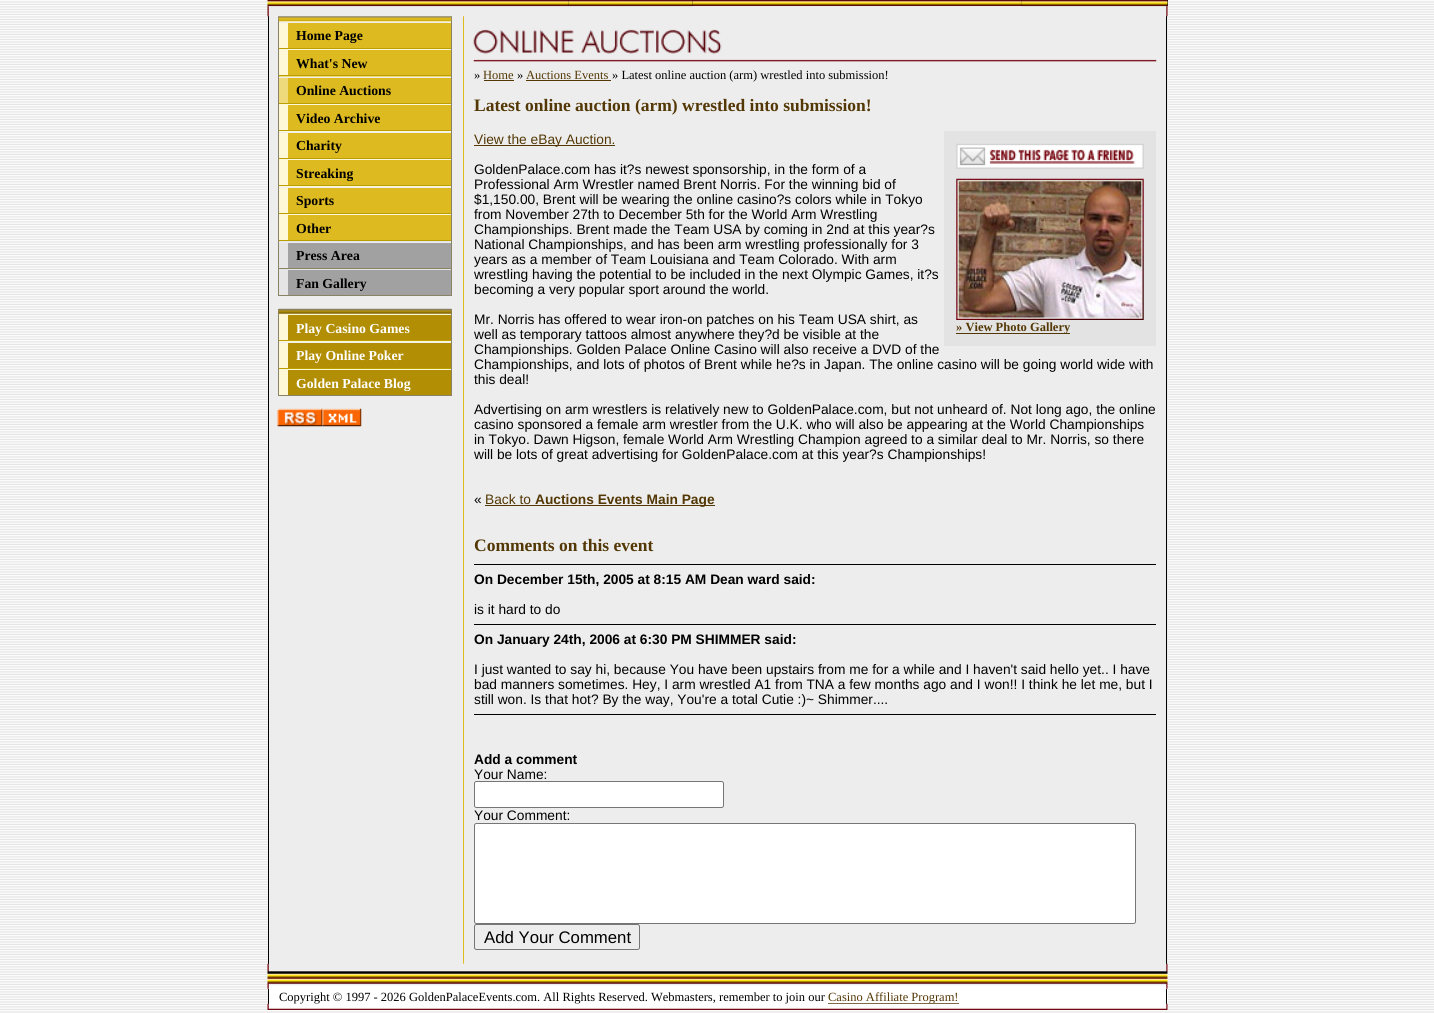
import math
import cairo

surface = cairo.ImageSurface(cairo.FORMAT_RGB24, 1434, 1013)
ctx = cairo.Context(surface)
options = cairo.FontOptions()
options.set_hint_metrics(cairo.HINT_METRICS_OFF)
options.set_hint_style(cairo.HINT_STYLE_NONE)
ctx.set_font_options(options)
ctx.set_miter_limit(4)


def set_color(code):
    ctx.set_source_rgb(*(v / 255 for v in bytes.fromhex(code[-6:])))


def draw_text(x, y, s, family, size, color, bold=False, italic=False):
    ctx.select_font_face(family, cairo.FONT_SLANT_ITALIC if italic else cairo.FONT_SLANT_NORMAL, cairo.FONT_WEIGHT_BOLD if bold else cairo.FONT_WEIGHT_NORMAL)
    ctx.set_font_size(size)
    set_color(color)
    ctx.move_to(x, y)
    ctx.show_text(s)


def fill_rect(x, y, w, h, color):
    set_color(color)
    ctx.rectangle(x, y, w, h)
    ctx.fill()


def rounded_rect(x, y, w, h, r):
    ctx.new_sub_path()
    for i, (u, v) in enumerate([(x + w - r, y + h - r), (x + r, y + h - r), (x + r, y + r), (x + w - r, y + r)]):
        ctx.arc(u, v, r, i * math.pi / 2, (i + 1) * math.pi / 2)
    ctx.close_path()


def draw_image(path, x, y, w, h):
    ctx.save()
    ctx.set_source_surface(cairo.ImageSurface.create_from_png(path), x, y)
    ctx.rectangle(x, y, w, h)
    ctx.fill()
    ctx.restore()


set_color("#eeeeee")
ctx.paint()
draw_image("assets/img1.png", 0, 0, 1434, 1011)
fill_rect(568, 0, 600, 6, "#000000")
draw_image("assets/img2.png", 267, 0, 302, 7)
draw_image("assets/img4.png", 692, 0, 330, 6)
draw_image("assets/img3.png", 568, 0, 125, 7)
draw_image("assets/img5.png", 1021, 0, 147, 7)
fill_rect(268, 7, 900, 957, "#ededed")
fill_rect(268, 16, 1, 948, "#000000")
fill_rect(278, 16, 1, 280, "#8a8264")
fill_rect(451, 16, 1, 280, "#8a8264")
fill_rect(463, 16, 1, 948, "#dcba20")
fill_rect(1166, 16, 1, 948, "#000000")
draw_image("assets/img6.png", 267, 6, 901, 11)
fill_rect(279, 21, 172, 1, "#fff8d6")
draw_image("assets/img7.png", 278, 16, 174, 6)
fill_rect(279, 23, 9, 25, "#fff8d6")
fill_rect(288, 23, 163, 25, "#dcba20")
draw_text(296, 40, "Home Page", "Liberation Serif", 13.75, "#000000", bold=True)
fill_rect(279, 48, 172, 1, "#bb9e00")
fill_rect(279, 49, 172, 1, "#fff8d6")
fill_rect(279, 50, 9, 25, "#fff8d6")
fill_rect(288, 50, 163, 25, "#dcba20")
draw_text(296, 68, "What's New", "Liberation Serif", 13.75, "#000000", bold=True)
fill_rect(279, 75, 172, 1, "#bb9e00")
fill_rect(279, 76, 172, 1, "#eed97b")
fill_rect(279, 78, 9, 25, "#eed97b")
fill_rect(288, 78, 163, 25, "#dcba20")
draw_text(296, 95, "Online Auctions", "Liberation Serif", 13.75, "#000000", bold=True)
fill_rect(279, 103, 172, 1, "#bb9e00")
fill_rect(279, 104, 172, 1, "#fff8d6")
fill_rect(279, 105, 9, 25, "#fff8d6")
fill_rect(288, 105, 163, 25, "#dcba20")
draw_text(296, 123, "Video Archive", "Liberation Serif", 13.75, "#000000", bold=True)
fill_rect(279, 130, 172, 1, "#bb9e00")
fill_rect(279, 131, 172, 1, "#fff8d6")
fill_rect(279, 133, 9, 25, "#fff8d6")
fill_rect(288, 133, 163, 25, "#dcba20")
draw_text(296, 150, "Charity", "Liberation Serif", 13.75, "#000000", bold=True)
fill_rect(279, 158, 172, 1, "#bb9e00")
fill_rect(279, 159, 172, 1, "#fff8d6")
fill_rect(279, 160, 9, 25, "#fff8d6")
fill_rect(288, 160, 163, 25, "#dcba20")
draw_text(296, 178, "Streaking", "Liberation Serif", 13.75, "#000000", bold=True)
fill_rect(279, 185, 172, 1, "#bb9e00")
fill_rect(279, 186, 172, 1, "#fff8d6")
fill_rect(279, 188, 9, 25, "#fff8d6")
fill_rect(288, 188, 163, 25, "#dcba20")
draw_text(296, 205, "Sports", "Liberation Serif", 13.75, "#000000", bold=True)
fill_rect(279, 213, 172, 1, "#bb9e00")
fill_rect(279, 214, 172, 1, "#fff8d6")
fill_rect(279, 215, 9, 25, "#fff8d6")
fill_rect(288, 215, 163, 25, "#dcba20")
draw_text(296, 233, "Other", "Liberation Serif", 13.75, "#000000", bold=True)
fill_rect(279, 240, 172, 1, "#bb9e00")
fill_rect(279, 241, 172, 1, "#e5e5e5")
fill_rect(279, 243, 9, 25, "#e5e5e5")
fill_rect(288, 243, 163, 25, "#a1a1a1")
draw_text(296, 260, "Press Area", "Liberation Serif", 13.75, "#000000", bold=True)
fill_rect(279, 268, 172, 1, "#8a8264")
fill_rect(279, 269, 172, 1, "#e5e5e5")
fill_rect(279, 270, 9, 25, "#e5e5e5")
fill_rect(288, 270, 163, 25, "#a1a1a1")
draw_text(296, 288, "Fan Gallery", "Liberation Serif", 13.75, "#000000", bold=True)
fill_rect(279, 295, 172, 1, "#8a8264")
fill_rect(278, 309, 1, 87, "#8a8264")
fill_rect(451, 309, 1, 87, "#8a8264")
draw_image("assets/img8.png", 278, 308, 174, 6)
fill_rect(279, 314, 172, 1, "#fff8d6")
fill_rect(279, 315, 9, 25, "#fff8d6")
fill_rect(288, 315, 163, 25, "#b28e04")
draw_text(296, 333, "Play Casino Games", "Liberation Serif", 13.75, "#ffffff", bold=True)
fill_rect(279, 340, 172, 1, "#bb9e00")
fill_rect(279, 341, 172, 1, "#fff8d6")
fill_rect(279, 343, 9, 25, "#fff8d6")
fill_rect(288, 343, 163, 25, "#b28e04")
draw_text(296, 360, "Play Online Poker", "Liberation Serif", 13.75, "#ffffff", bold=True)
fill_rect(279, 368, 172, 1, "#bb9e00")
fill_rect(279, 369, 172, 1, "#fff8d6")
fill_rect(279, 370, 9, 25, "#fff8d6")
fill_rect(288, 370, 163, 25, "#b28e04")
draw_text(296, 388, "Golden Palace Blog", "Liberation Serif", 13.75, "#ffffff", bold=True)
fill_rect(279, 395, 172, 1, "#8a8264")
draw_image("assets/img9.png", 277, 408, 46, 19)
draw_image("assets/img10.png", 322, 408, 40, 19)
draw_image("assets/img11.png", 473, 29, 684, 33)
draw_text(474, 79, "»", "Liberation Serif", 12.5, "#000000")
draw_text(483, 79, "Home", "Liberation Serif", 12.5, "#533805")
fill_rect(484, 80, 30, 1, "#533805")
draw_text(517, 79, "»", "Liberation Serif", 12.5, "#000000")
draw_text(526, 79, "Auctions Events", "Liberation Serif", 12.5, "#533805")
draw_text(612, 79, "» Latest online auction (arm) wrestled into submission!", "Liberation Serif", 12.5, "#000000")
fill_rect(526, 80, 85, 1, "#533805")
draw_text(474, 111, "Latest online auction (arm) wrestled into submission!", "Liberation Serif", 17.5, "#533805", bold=True)
fill_rect(474, 145, 141, 1, "#533805")
draw_text(474, 144, "View the eBay Auction.", "Liberation Sans", 13.75, "#533805")
draw_text(474, 174, "GoldenPalace.com has it?s newest sponsorship, in the form of a", "Liberation Sans", 13.75, "#000000")
draw_text(474, 189, "Professional Arm Wrestler named Brent Norris. For the winning bid of", "Liberation Sans", 13.75, "#000000")
draw_text(474, 204, "$1,150.00, Brent will be wearing the online casino?s colors while in Tokyo", "Liberation Sans", 13.75, "#000000")
draw_text(474, 219, "from November 27th to December 5th for the World Arm Wrestling", "Liberation Sans", 13.75, "#000000")
draw_text(474, 234, "Championships. Brent made the Team USA by coming in 2nd at this year?s", "Liberation Sans", 13.75, "#000000")
draw_text(474, 249, "National Championships, and has been arm wrestling professionally for 3", "Liberation Sans", 13.75, "#000000")
draw_text(474, 264, "years as a member of Team Louisiana and Team Colorado. With arm", "Liberation Sans", 13.75, "#000000")
draw_text(474, 279, "wrestling having the potential to be included in the next Olympic Games, it?s", "Liberation Sans", 13.75, "#000000")
draw_text(474, 294, "becoming a very popular sport around the world.", "Liberation Sans", 13.75, "#000000")
draw_text(474, 324, "Mr. Norris has offered to wear iron-on patches on his Team USA shirt, as", "Liberation Sans", 13.75, "#000000")
fill_rect(944, 131, 212, 215, "#e3e3e3")
draw_image("assets/img12.png", 956, 143, 188, 26)
draw_image("assets/img13.png", 956, 178, 188, 142)
fill_rect(956, 333, 114, 1, "#533805")
draw_text(956, 331, "» View Photo Gallery", "Liberation Serif", 12.5, "#533805", bold=True)
draw_text(474, 339, "well as temporary tattoos almost anywhere they?d be visible at the", "Liberation Sans", 13.75, "#000000")
draw_text(474, 354, "Championships. Golden Palace Online Casino will also receive a DVD of the", "Liberation Sans", 13.75, "#000000")
draw_text(474, 369, "Championships, and lots of photos of Brent while he?s in Japan. The online casino will be going world wide with", "Liberation Sans", 13.75, "#000000")
draw_text(474, 384, "this deal!", "Liberation Sans", 13.75, "#000000")
draw_text(474, 414, "Advertising on arm wrestlers is relatively new to GoldenPalace.com, but not unheard of. Not long ago, the online", "Liberation Sans", 13.75, "#000000")
draw_text(474, 429, "casino sponsored a female arm wrestler from the U.K. who will also be appearing at the World Championships", "Liberation Sans", 13.75, "#000000")
draw_text(474, 444, "in Tokyo. Dawn Higson, female World Arm Wrestling Champion agreed to a similar deal to Mr. Norris, so there", "Liberation Sans", 13.75, "#000000")
draw_text(474, 459, "will be lots of great advertising for GoldenPalace.com at this year?s Championships!", "Liberation Sans", 13.75, "#000000")
draw_text(474, 504, "«", "Liberation Sans", 13.75, "#000000")
draw_text(485, 504, "Back to", "Liberation Sans", 13.75, "#533805")
fill_rect(485, 505, 230, 1, "#533805")
draw_text(535, 504, "Auctions Events Main Page", "Liberation Sans", 13.75, "#533805", bold=True)
draw_text(474, 551, "Comments on this event", "Liberation Serif", 17.5, "#533805", bold=True)
fill_rect(474, 564, 682, 1, "#000000")
draw_text(474, 584, "On December 15th, 2005 at 8:15 AM Dean ward said:", "Liberation Sans", 13.75, "#000000", bold=True)
draw_text(474, 614, "is it hard to do", "Liberation Sans", 13.75, "#000000")
fill_rect(474, 624, 682, 1, "#000000")
draw_text(474, 644, "On January 24th, 2006 at 6:30 PM SHIMMER said:", "Liberation Sans", 13.75, "#000000", bold=True)
draw_text(474, 674, "I just wanted to say hi, because You have been upstairs from me for a while and I haven't said hello yet.. I have", "Liberation Sans", 13.75, "#000000")
draw_text(474, 689, "bad manners sometimes. Hey, I arm wrestled A1 from TNA a few months ago and I won!! I think he let me, but I", "Liberation Sans", 13.75, "#000000")
draw_text(474, 704, "still won. Is that hot? By the way, You're a total Cutie :)~ Shimmer....", "Liberation Sans", 13.75, "#000000")
fill_rect(474, 714, 682, 1, "#000000")
draw_text(474, 764, "Add a comment", "Liberation Sans", 13.75, "#000000", bold=True)
draw_text(474, 779, "Your Name:", "Liberation Sans", 13.75, "#000000")
set_color("#ffffff")
rounded_rect(474.5, 781.5, 249, 26, 2)
ctx.fill_preserve()
set_color("#767676")
ctx.set_line_width(1)
ctx.stroke()
draw_text(474, 820, "Your Comment:", "Liberation Sans", 13.75, "#000000")
set_color("#ffffff")
rounded_rect(474.5, 823.5, 661, 100, 2)
ctx.fill_preserve()
set_color("#767676")
ctx.stroke()
rounded_rect(474.5, 924.5, 165, 25, 2)
ctx.stroke()
draw_text(484, 943, "Add Your Comment", "Liberation Sans", 16.75, "#000000")
fill_rect(268, 964, 900, 46, "#ffffff")
draw_image("assets/img14.png", 267, 963, 901, 26)
fill_rect(268, 989, 1, 15, "#000000")
draw_text(279, 1001, "Copyright © 1997 - 2026 GoldenPalaceEvents.com. All Rights Reserved. Webmasters, remember to join our", "Liberation Serif", 12.5, "#000000")
fill_rect(828, 1003, 131, 1, "#533805")
draw_text(828, 1001, "Casino Affiliate Program!", "Liberation Serif", 12.5, "#533805")
fill_rect(1166, 989, 1, 15, "#000000")
draw_image("assets/img15.png", 267, 1003, 901, 7)
surface.write_to_png("output.png")
